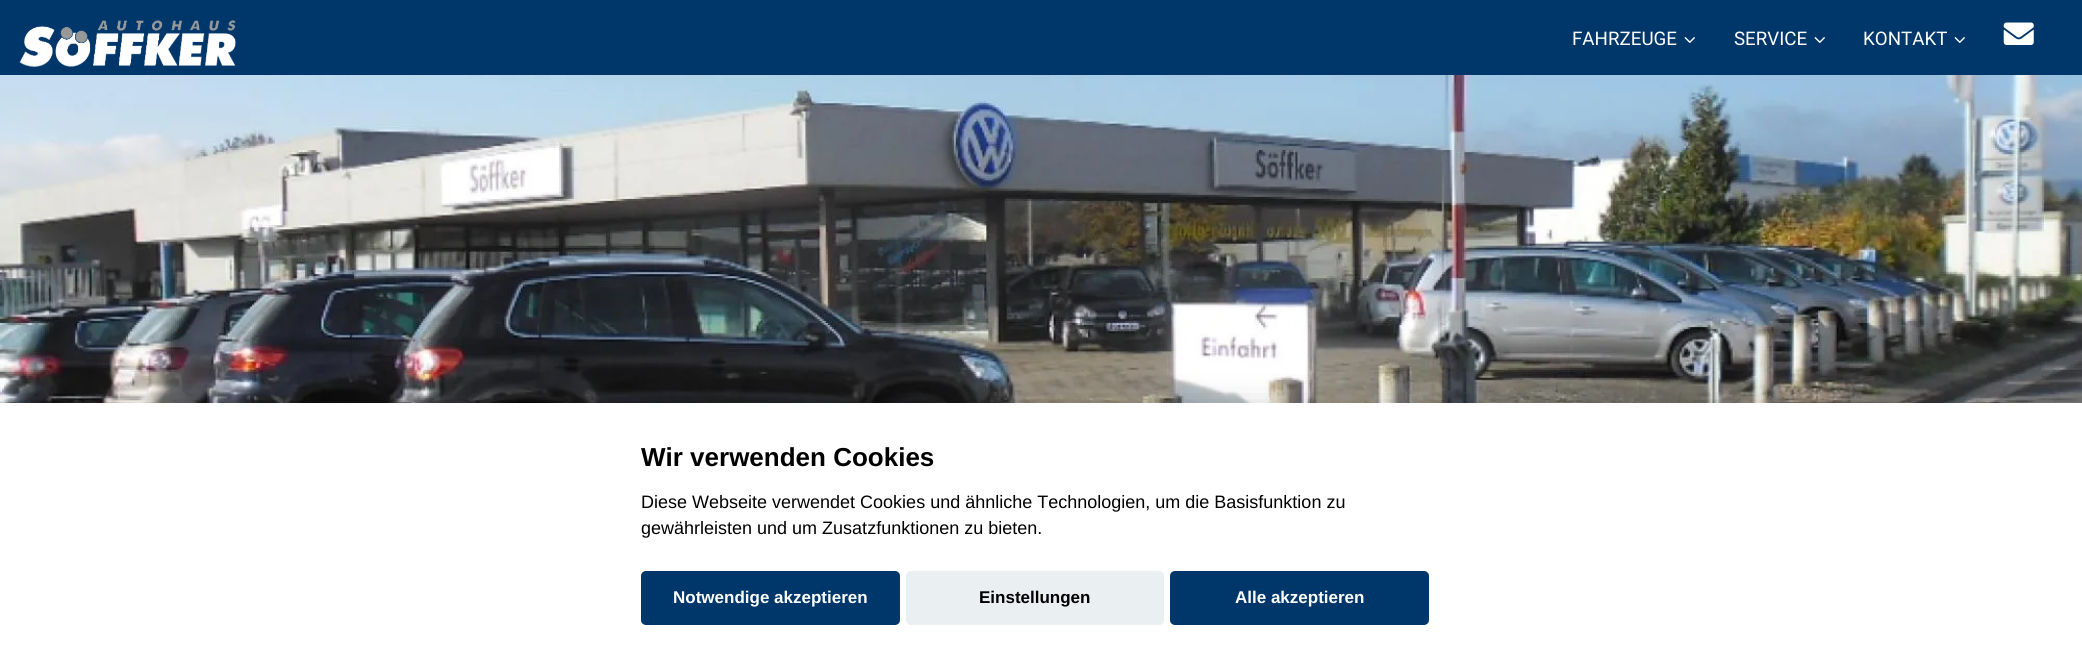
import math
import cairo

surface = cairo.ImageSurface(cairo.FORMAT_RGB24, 2082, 664)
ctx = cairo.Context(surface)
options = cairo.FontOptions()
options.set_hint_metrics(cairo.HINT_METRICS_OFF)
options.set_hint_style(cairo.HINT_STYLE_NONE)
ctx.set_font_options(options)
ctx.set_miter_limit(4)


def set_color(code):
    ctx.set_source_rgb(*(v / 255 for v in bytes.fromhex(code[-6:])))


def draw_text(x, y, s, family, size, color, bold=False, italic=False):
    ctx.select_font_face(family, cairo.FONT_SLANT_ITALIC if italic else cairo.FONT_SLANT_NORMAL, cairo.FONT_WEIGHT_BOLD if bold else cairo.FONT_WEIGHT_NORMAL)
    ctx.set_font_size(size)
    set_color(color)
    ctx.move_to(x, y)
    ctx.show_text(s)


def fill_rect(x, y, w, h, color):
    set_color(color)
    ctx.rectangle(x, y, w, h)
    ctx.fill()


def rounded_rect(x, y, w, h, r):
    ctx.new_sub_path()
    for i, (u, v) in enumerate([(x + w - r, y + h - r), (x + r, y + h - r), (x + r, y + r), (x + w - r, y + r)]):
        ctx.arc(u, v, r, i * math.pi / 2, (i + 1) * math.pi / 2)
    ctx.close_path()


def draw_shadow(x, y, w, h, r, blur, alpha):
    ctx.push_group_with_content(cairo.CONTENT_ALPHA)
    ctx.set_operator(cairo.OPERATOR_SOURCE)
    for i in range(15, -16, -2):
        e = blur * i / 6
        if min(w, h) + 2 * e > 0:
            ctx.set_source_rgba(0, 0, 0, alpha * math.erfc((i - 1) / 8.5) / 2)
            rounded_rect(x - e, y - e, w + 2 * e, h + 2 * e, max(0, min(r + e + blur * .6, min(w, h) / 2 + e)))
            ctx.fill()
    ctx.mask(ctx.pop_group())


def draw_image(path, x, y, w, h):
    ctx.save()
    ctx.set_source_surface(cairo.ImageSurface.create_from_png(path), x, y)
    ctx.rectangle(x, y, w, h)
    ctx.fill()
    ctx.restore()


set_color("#ffffff")
ctx.paint()
fill_rect(0, 0, 2082, 75, "#00376b")
draw_image("assets/img1.png", 19, 20, 217, 47)
draw_text(1572, 45, "FAHRZEUGE", "Roboto", 18.75, "#ffffff")
draw_image("assets/img2.png", 1684, 37, 11, 6)
draw_text(1734, 45, "SERVICE", "Roboto", 18.75, "#ffffff")
draw_image("assets/img2.png", 1814, 37, 11, 6)
draw_text(1863, 45, "KONTAKT", "Roboto", 18.75, "#ffffff")
draw_image("assets/img2.png", 1954, 37, 11, 6)
draw_image("assets/img3.png", 2003, 22, 31, 23)
draw_image("assets/img4.png", 0, 75, 2082, 328)
set_color("#020203")
draw_shadow(0, 415, 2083, 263, 0, 19, 0.28)
fill_rect(0, 403, 2082, 261, "#ffffff")
draw_text(641, 466, "Wir verwenden Cookies", "Liberation Sans", 26, "#000000", bold=True)
draw_text(641, 508, "Diese Webseite verwendet Cookies und ähnliche Technologien, um die Basisfunktion zu", "Liberation Sans", 18, "#000000")
draw_text(641, 534, "gewährleisten und um Zusatzfunktionen zu bieten.", "Liberation Sans", 18, "#000000")
set_color("#00376b")
rounded_rect(641, 571, 259, 54, 5)
ctx.fill()
draw_text(673, 603, "Notwendige akzeptieren", "Liberation Sans", 17, "#ffffff", bold=True)
set_color("#eaeff2")
rounded_rect(906, 571, 258, 54, 5)
ctx.fill()
draw_text(979, 603, "Einstellungen", "Liberation Sans", 17, "#000000", bold=True)
set_color("#00376b")
rounded_rect(1170, 571, 259, 54, 5)
ctx.fill()
draw_text(1235, 603, "Alle akzeptieren", "Liberation Sans", 17, "#ffffff", bold=True)
surface.write_to_png("output.png")
